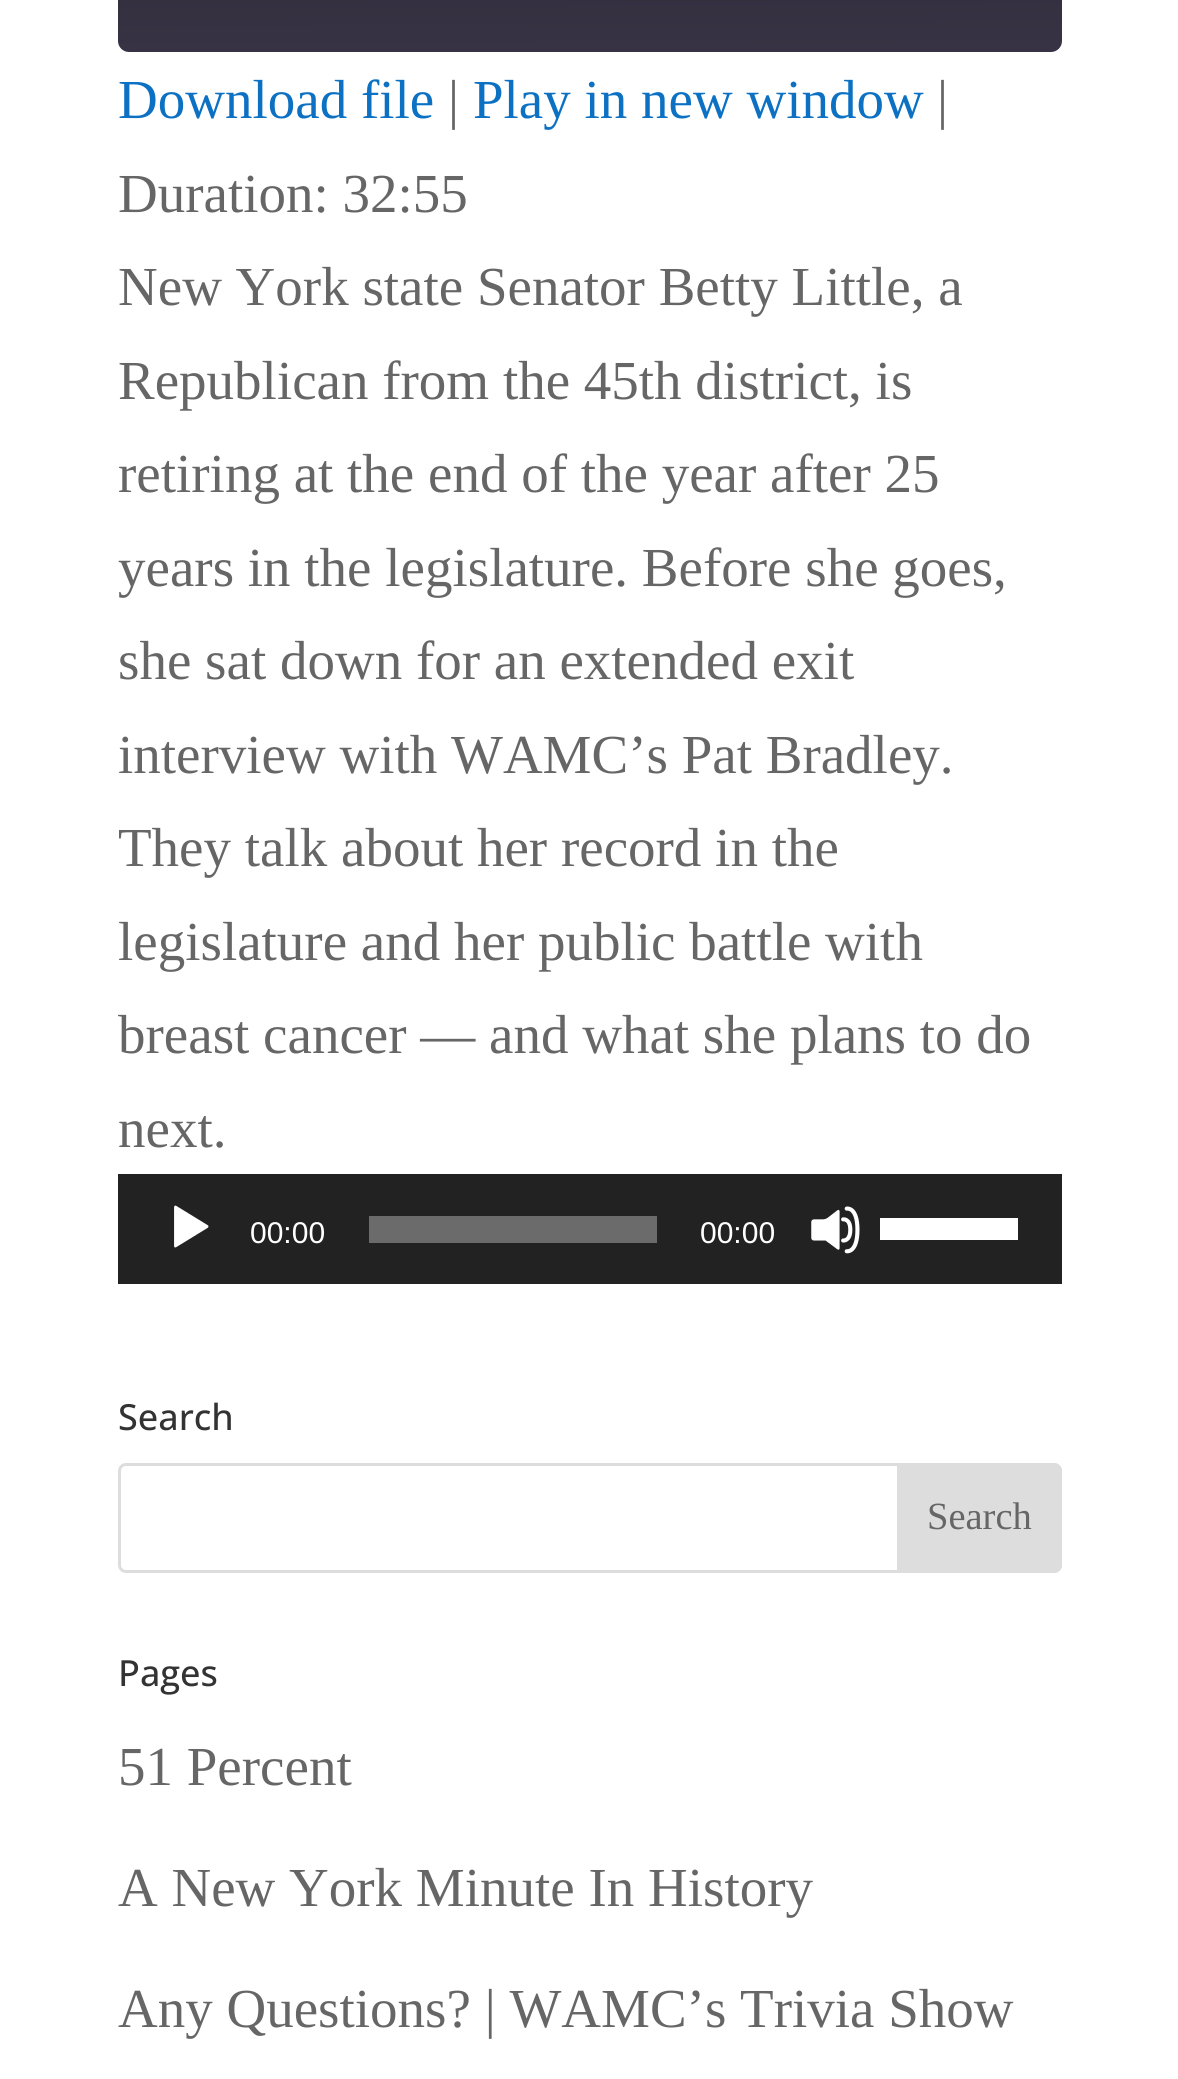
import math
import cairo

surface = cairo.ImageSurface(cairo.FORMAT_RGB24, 1178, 2079)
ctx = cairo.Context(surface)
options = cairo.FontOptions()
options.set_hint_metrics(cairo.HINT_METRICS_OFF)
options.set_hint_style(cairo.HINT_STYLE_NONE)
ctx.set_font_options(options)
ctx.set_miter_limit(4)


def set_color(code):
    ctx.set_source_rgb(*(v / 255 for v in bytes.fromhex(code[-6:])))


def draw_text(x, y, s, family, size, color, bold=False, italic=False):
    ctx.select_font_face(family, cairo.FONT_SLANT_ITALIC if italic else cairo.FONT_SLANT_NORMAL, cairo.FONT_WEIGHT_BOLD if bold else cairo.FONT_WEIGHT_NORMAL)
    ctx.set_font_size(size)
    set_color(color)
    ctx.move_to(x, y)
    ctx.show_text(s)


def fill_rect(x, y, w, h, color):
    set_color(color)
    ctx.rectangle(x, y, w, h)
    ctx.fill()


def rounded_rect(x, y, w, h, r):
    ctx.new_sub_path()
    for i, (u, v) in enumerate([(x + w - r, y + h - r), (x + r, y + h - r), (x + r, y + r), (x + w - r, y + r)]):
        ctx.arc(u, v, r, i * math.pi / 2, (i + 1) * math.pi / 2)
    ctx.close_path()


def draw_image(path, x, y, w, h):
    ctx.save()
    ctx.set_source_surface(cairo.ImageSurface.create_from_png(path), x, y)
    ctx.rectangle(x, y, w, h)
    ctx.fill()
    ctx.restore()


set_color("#ffffff")
ctx.paint()
gradient = cairo.LinearGradient(591, 55, 589, -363)
gradient.add_color_stop_rgba(0.01, 0.22, 0.2, 0.267, 1)
gradient.add_color_stop_rgba(0.78, 0.141, 0.129, 0.173, 1)
ctx.set_source(gradient)
rounded_rect(118, -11, 944, 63, 11)
ctx.fill()
draw_text(118, 118, "Download file", "Liberation Serif", 55, "#0c71c3")
draw_text(448, 118, "|", "Liberation Serif", 55, "#666666")
draw_text(473, 118, "Play in new window", "Liberation Serif", 55, "#0c71c3")
draw_text(937, 118, "|", "Liberation Serif", 55, "#666666")
draw_text(118, 212, "Duration: 32:55", "Liberation Serif", 55, "#666666")
draw_text(118, 305, "New York state Senator Betty Little, a", "Liberation Serif", 55, "#666666")
draw_text(118, 399, "Republican from the 45th district, is", "Liberation Serif", 55, "#666666")
draw_text(118, 492, "retiring at the end of the year after 25", "Liberation Serif", 55, "#666666")
draw_text(118, 586, "years in the legislature. Before she goes,", "Liberation Serif", 55, "#666666")
draw_text(118, 679, "she sat down for an extended exit", "Liberation Serif", 55, "#666666")
draw_text(118, 773, "interview with WAMC’s Pat Bradley.", "Liberation Serif", 55, "#666666")
draw_text(118, 866, "They talk about her record in the", "Liberation Serif", 55, "#666666")
draw_text(118, 960, "legislature and her public battle with", "Liberation Serif", 55, "#666666")
draw_text(118, 1053, "breast cancer — and what she plans to do", "Liberation Serif", 55, "#666666")
draw_text(118, 1147, "next.", "Liberation Serif", 55, "#666666")
fill_rect(118, 1174, 944, 110, "#222222")
draw_image("assets/img1.png", 174, 1205, 35, 43)
draw_text(250, 1243, "00:00", "Liberation Sans", 30, "#ffffff")
fill_rect(369, 1216, 288, 27, "#6b6b6b")
draw_text(700, 1243, "00:00", "Liberation Sans", 30, "#ffffff")
draw_image("assets/img2.png", 811, 1206, 49, 48)
fill_rect(880, 1218, 138, 22, "#ffffff")
draw_text(118, 1430, "Search", "Open Sans Medium", 36, "#333333")
rounded_rect(119.5, 1464.5, 941, 107, 6.5)
set_color("#dddddd")
ctx.set_line_width(3)
ctx.stroke()
ctx.new_path()
ctx.move_to(898.5, 1464.5)
ctx.line_to(1054, 1464.5)
ctx.curve_to(1057.5, 1464.5, 1060.5, 1467.5, 1060.5, 1471)
ctx.line_to(1060.5, 1565)
ctx.curve_to(1060.5, 1568.5, 1057.5, 1571.5, 1054, 1571.5)
ctx.line_to(898.5, 1571.5)
ctx.close_path()
ctx.fill_preserve()
ctx.stroke()
draw_text(927, 1529, "Search", "Liberation Serif", 38.5, "#666666")
draw_text(118, 1686, "Pages", "Open Sans Medium", 36, "#333333")
draw_text(118, 1785, "51 Percent", "Liberation Serif", 55, "#666666")
draw_text(118, 1906, "A New York Minute In History", "Liberation Serif", 55, "#666666")
draw_text(118, 2027, "Any Questions? | WAMC’s Trivia Show", "Liberation Serif", 55, "#666666")
surface.write_to_png("output.png")
